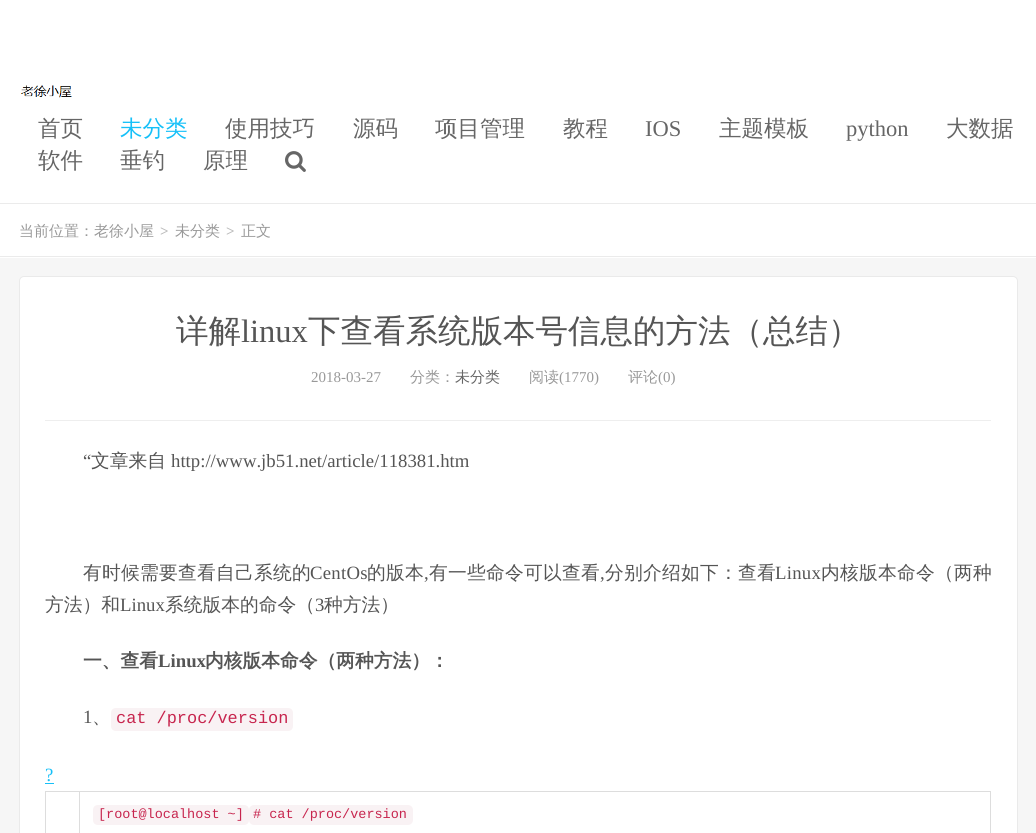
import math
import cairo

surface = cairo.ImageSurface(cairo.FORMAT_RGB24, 1036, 833)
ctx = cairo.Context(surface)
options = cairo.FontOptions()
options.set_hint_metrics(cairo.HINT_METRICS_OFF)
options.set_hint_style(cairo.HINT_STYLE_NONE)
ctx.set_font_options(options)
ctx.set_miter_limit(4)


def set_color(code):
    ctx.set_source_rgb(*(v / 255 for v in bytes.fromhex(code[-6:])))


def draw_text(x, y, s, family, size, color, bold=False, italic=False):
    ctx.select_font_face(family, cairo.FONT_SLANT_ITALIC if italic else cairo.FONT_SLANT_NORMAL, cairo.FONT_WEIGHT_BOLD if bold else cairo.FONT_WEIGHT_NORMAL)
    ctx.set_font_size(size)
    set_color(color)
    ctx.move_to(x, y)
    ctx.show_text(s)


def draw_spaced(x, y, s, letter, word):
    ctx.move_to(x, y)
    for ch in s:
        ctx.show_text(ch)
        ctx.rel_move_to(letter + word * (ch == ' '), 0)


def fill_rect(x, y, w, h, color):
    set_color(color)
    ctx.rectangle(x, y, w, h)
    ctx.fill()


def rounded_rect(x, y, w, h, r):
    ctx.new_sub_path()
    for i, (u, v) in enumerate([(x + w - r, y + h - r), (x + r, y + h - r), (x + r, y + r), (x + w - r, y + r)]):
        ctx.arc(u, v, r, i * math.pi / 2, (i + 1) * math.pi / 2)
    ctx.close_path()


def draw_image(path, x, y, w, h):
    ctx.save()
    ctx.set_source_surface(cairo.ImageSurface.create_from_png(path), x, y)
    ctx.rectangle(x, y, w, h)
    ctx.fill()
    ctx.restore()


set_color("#f6f6f6")
ctx.paint()
fill_rect(0, 0, 1036, 203, "#ffffff")
fill_rect(0, 203, 1036, 1, "#ebebeb")
draw_image("assets/img1.png", 21, 85, 51, 13)
draw_text(38, 136, "首页", "WenQuanYi Zen Hei Medium", 22.5, "#666666")
draw_text(120, 136, "未分类", "WenQuanYi Zen Hei Medium", 22.5, "#16c0f8")
draw_text(225, 136, "使用技巧", "WenQuanYi Zen Hei Medium", 22.5, "#666666")
draw_text(353, 136, "源码", "WenQuanYi Zen Hei Medium", 22.5, "#666666")
draw_text(435, 136, "项目管理", "WenQuanYi Zen Hei Medium", 22.5, "#666666")
draw_text(563, 136, "教程", "WenQuanYi Zen Hei Medium", 22.5, "#666666")
draw_text(645, 136, "IOS", "Liberation Serif", 22.5, "#666666")
draw_text(719, 136, "主题模板", "WenQuanYi Zen Hei Medium", 22.5, "#666666")
draw_text(846, 136, "python", "Liberation Serif", 22.5, "#666666")
draw_text(946, 136, "大数据", "WenQuanYi Zen Hei Medium", 22.5, "#666666")
draw_text(38, 168, "软件", "WenQuanYi Zen Hei Medium", 22.5, "#666666")
draw_text(120, 168, "垂钓", "WenQuanYi Zen Hei Medium", 22.5, "#666666")
draw_text(203, 168, "原理", "WenQuanYi Zen Hei Medium", 22.5, "#666666")
draw_image("assets/img2.png", 285, 151, 21, 21)
fill_rect(0, 204, 1036, 54, "#ffffff")
fill_rect(0, 256, 1036, 1, "#ebebeb")
draw_text(19, 236, "当前位置：老徐小屋", "WenQuanYi Zen Hei Medium", 15, "#999999")
draw_text(160, 236, ">", "Liberation Serif", 15, "#bbbbbb", bold=True)
draw_text(175, 236, "未分类", "WenQuanYi Zen Hei Medium", 15, "#999999")
draw_text(226, 236, ">", "Liberation Serif", 15, "#bbbbbb", bold=True)
draw_text(241, 236, "正文", "WenQuanYi Zen Hei Medium", 15, "#999999")
set_color("#ffffff")
rounded_rect(19.5, 276.5, 998, 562, 4.5)
ctx.fill_preserve()
set_color("#eaeaea")
ctx.set_line_width(1)
ctx.stroke()
fill_rect(45, 420, 946, 1, "#eeeeee")
draw_text(176, 342, "详解", "WenQuanYi Zen Hei Medium", 32.5, "#555555")
draw_text(241, 342, "linux", "Liberation Serif", 32.5, "#555555")
draw_text(308, 342, "下查看系统版本号信息的方法（总结）", "WenQuanYi Zen Hei Medium", 32.5, "#555555")
draw_text(311, 382, "2018-03-27", "Liberation Serif", 15, "#999999")
draw_text(410, 382, "分类：", "WenQuanYi Zen Hei Medium", 15, "#999999")
draw_text(455, 382, "未分类", "WenQuanYi Zen Hei Medium", 15, "#666666")
draw_text(529, 382, "阅读", "WenQuanYi Zen Hei Medium", 15, "#999999")
draw_text(559, 382, "(1770)", "Liberation Serif", 15, "#999999")
draw_text(628, 382, "评论", "WenQuanYi Zen Hei Medium", 15, "#999999")
draw_text(658, 382, "(0)", "Liberation Serif", 15, "#999999")
draw_text(83, 467, "“", "Liberation Serif", 18.75, "#555555")
draw_text(91, 467, "文章来自", "WenQuanYi Zen Hei Medium", 18.75, "#555555")
draw_text(171, 467, "http://www.jb51.net/article/118381.htm", "Liberation Serif", 18.75, "#555555")
ctx.select_font_face("WenQuanYi Zen Hei Medium")
draw_spaced(83, 579, "有时候需要查看自己系统的", 0.25, 0)
ctx.select_font_face("Liberation Serif")
draw_spaced(310, 579, "CentOs", 0.25, 0)
ctx.select_font_face("WenQuanYi Zen Hei Medium")
draw_spaced(367, 579, "的版本", 0.25, 0)
ctx.select_font_face("Liberation Serif")
draw_spaced(424, 579, ",", 0.25, 0)
ctx.select_font_face("WenQuanYi Zen Hei Medium")
draw_spaced(429, 579, "有一些命令可以查看", 0.25, 0)
ctx.select_font_face("Liberation Serif")
draw_spaced(600, 579, ",", 0.25, 0)
ctx.select_font_face("WenQuanYi Zen Hei Medium")
draw_spaced(605, 579, "分别介绍如下：查看", 0.25, 0)
ctx.select_font_face("Liberation Serif")
draw_spaced(775, 579, "Linux", 0.25, 0)
ctx.select_font_face("WenQuanYi Zen Hei Medium")
draw_spaced(821, 579, "内核版本命令（两种", 0.25, 0)
draw_text(45, 611, "方法）和", "WenQuanYi Zen Hei Medium", 18.75, "#555555")
draw_text(120, 611, "Linux", "Liberation Serif", 18.75, "#555555")
draw_text(165, 611, "系统版本的命令（", "WenQuanYi Zen Hei Medium", 18.75, "#555555")
draw_text(315, 611, "3", "Liberation Serif", 18.75, "#555555")
draw_text(324, 611, "种方法）", "WenQuanYi Zen Hei Medium", 18.75, "#555555")
draw_text(83, 667, "一、查看", "WenQuanYi Zen Hei", 18.75, "#555555", bold=True)
draw_text(158, 667, "Linux", "Liberation Serif", 18.75, "#555555", bold=True)
draw_text(205, 667, "内核版本命令（两种方法）：", "WenQuanYi Zen Hei", 18.75, "#555555", bold=True)
draw_text(83, 723, "1", "Liberation Serif", 18.75, "#555555")
draw_text(92, 723, "、", "WenQuanYi Zen Hei Medium", 18.75, "#555555")
set_color("#f9f2f4")
ctx.new_path()
ctx.move_to(116, 708)
ctx.line_to(156, 708)
ctx.line_to(156, 731)
ctx.line_to(116, 731)
ctx.curve_to(113, 731, 111, 729, 111, 726)
ctx.line_to(111, 713)
ctx.curve_to(111, 710, 113, 708, 116, 708)
ctx.close_path()
ctx.fill()
fill_rect(156, 708, 62, 23, "#f9f2f4")
ctx.new_path()
ctx.move_to(218, 708)
ctx.line_to(288, 708)
ctx.curve_to(291, 708, 293, 710, 293, 713)
ctx.line_to(293, 726)
ctx.curve_to(293, 729, 291, 731, 288, 731)
ctx.line_to(218, 731)
ctx.close_path()
ctx.fill()
draw_text(116, 723, "cat /proc/version", "Liberation Mono", 16.9, "#c7254e")
draw_text(45, 781, "?", "Liberation Serif", 18.75, "#16c0f8")
fill_rect(45, 783, 9, 1, "#16c0f8")
fill_rect(45, 791, 946, 1, "#dddddd")
fill_rect(45, 791, 1, 42, "#dddddd")
fill_rect(990, 791, 1, 42, "#dddddd")
fill_rect(79, 791, 1, 42, "#dddddd")
set_color("#f9f2f4")
ctx.new_path()
ctx.move_to(98, 805)
ctx.line_to(105, 805)
ctx.line_to(105, 825)
ctx.line_to(98, 825)
ctx.curve_to(95, 825, 93, 823, 93, 820)
ctx.line_to(93, 810)
ctx.curve_to(93, 807, 95, 805, 98, 805)
ctx.close_path()
ctx.fill()
fill_rect(105, 805, 123, 20, "#f9f2f4")
ctx.new_path()
ctx.move_to(228, 805)
ctx.line_to(244, 805)
ctx.curve_to(247, 805, 249, 807, 249, 810)
ctx.line_to(249, 820)
ctx.curve_to(249, 823, 247, 825, 244, 825)
ctx.line_to(228, 825)
ctx.close_path()
ctx.fill()
draw_text(98, 818, "[root@localhost ~]", "Liberation Mono", 13.5, "#c7254e")
set_color("#f9f2f4")
rounded_rect(249, 805, 164, 20, 5)
ctx.fill()
draw_text(253, 818, "# cat /proc/version", "Liberation Mono", 13.5, "#c7254e")
surface.write_to_png("output.png")
